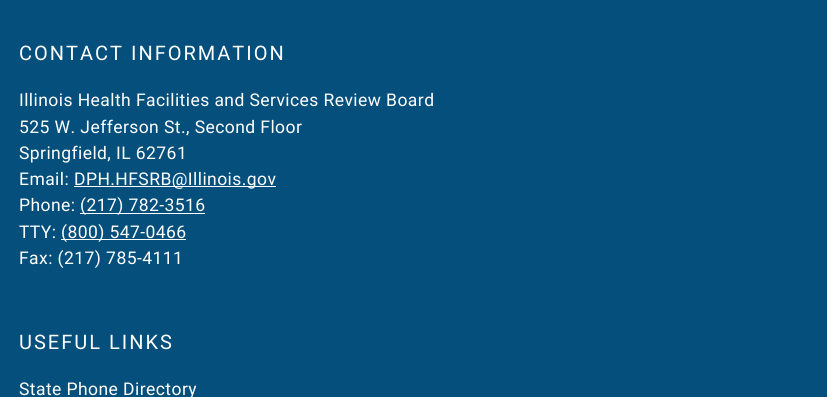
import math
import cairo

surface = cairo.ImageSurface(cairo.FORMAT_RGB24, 827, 397)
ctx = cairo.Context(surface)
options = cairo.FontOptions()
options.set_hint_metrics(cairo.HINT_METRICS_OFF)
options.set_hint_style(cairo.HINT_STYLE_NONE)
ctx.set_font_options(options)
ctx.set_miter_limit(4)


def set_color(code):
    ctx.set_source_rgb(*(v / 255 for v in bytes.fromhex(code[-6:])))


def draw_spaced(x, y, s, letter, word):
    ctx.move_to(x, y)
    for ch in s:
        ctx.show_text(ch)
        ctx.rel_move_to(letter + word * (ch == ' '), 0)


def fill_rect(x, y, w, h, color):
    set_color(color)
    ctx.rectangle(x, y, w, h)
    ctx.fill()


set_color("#044f7c")
ctx.paint()
ctx.select_font_face("Roboto")
ctx.set_font_size(20)
set_color("#ffffff")
draw_spaced(19, 60, "CONTACT INFORMATION", 2, 0)
ctx.set_font_size(17.5)
draw_spaced(19, 106, "Illinois Health Facilities and Services Review Board", 0.43, 0)
draw_spaced(19, 133, "525 W. Jefferson St., Second Floor", 0.43, 0)
draw_spaced(19, 159, "Springfield, IL 62761", 0.43, 0)
draw_spaced(19, 185, "Email:", 0.43, 0)
fill_rect(74, 186, 202, 1, "#ffffff")
draw_spaced(74, 185, "DPH.HFSRB@Illinois.gov", 0.43, 0)
draw_spaced(19, 211, "Phone:", 0.43, 0)
fill_rect(80, 213, 125, 1, "#ffffff")
draw_spaced(80, 211, "(217) 782-3516", 0.43, 0)
draw_spaced(19, 238, "TTY:", 0.43, 0)
fill_rect(61, 239, 125, 1, "#ffffff")
draw_spaced(61, 238, "(800) 547-0466", 0.43, 0)
draw_spaced(19, 264, "Fax: (217) 785-4111", 0.43, 0)
ctx.set_font_size(20)
draw_spaced(19, 349, "USEFUL LINKS", 2, 0)
ctx.set_font_size(17.5)
draw_spaced(19, 395, "State Phone Directory", 0.43, 0)
surface.write_to_png("output.png")
